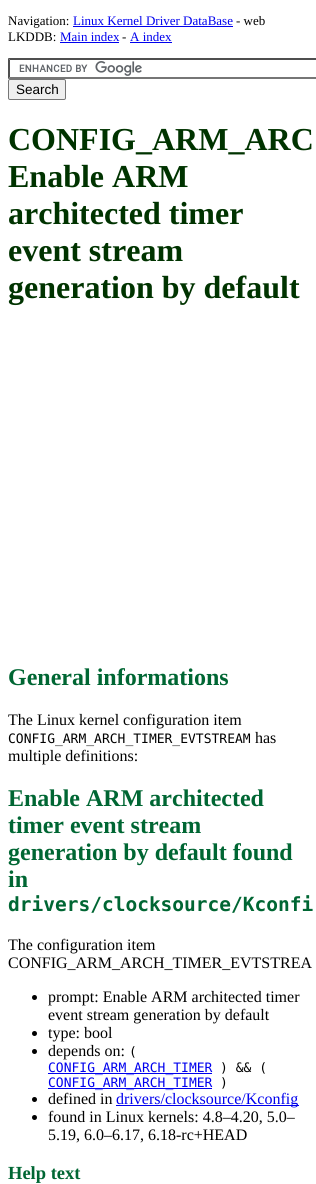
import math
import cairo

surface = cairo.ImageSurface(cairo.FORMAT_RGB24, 316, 1184)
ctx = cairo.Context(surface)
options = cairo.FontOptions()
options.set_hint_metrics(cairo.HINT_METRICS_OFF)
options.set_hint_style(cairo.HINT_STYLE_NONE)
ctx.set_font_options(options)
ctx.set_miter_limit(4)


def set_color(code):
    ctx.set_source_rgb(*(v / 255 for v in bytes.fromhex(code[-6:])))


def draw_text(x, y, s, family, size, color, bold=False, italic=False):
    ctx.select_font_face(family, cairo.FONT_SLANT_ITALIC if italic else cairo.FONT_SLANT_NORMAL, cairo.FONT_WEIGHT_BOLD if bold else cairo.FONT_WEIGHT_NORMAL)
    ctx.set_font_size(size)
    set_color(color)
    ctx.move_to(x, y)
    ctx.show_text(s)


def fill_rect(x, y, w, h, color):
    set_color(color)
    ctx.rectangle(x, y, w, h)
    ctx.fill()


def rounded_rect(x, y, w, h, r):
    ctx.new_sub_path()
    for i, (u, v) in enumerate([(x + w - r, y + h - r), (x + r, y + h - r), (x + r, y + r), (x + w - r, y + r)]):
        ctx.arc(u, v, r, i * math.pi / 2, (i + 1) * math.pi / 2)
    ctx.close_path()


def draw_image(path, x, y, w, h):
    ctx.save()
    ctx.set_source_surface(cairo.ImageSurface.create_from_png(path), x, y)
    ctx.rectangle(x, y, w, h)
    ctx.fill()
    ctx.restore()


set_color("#ffffff")
ctx.paint()
draw_text(8, 25, "Navigation:", "Liberation Serif", 13, "#000000")
draw_text(73, 25, "Linux Kernel Driver DataBase", "Liberation Serif", 13, "#0000ee")
fill_rect(73, 26, 160, 1, "#0000ee")
draw_text(236, 25, "- web", "Liberation Serif", 13, "#000000")
draw_text(8, 41, "LKDDB:", "Liberation Serif", 13, "#000000")
draw_text(60, 41, "Main index", "Liberation Serif", 13, "#0000ee")
fill_rect(60, 42, 59, 1, "#0000ee")
draw_text(122, 41, "-", "Liberation Serif", 13, "#000000")
draw_text(130, 41, "A index", "Liberation Serif", 13, "#0000ee")
fill_rect(130, 42, 42, 1, "#0000ee")
draw_image("assets/img1.png", 19, 61, 123, 15)
set_color("#4f4f4f")
ctx.new_path()
ctx.move_to(8, 58)
ctx.line_to(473, 58)
ctx.line_to(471, 60)
ctx.line_to(10, 60)
ctx.close_path()
ctx.fill()
set_color("#767676")
ctx.new_path()
ctx.move_to(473, 79)
ctx.line_to(8, 79)
ctx.line_to(10, 77)
ctx.line_to(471, 77)
ctx.close_path()
ctx.fill()
set_color("#4f4f4f")
ctx.new_path()
ctx.move_to(8, 79)
ctx.line_to(8, 58)
ctx.line_to(10, 60)
ctx.line_to(10, 77)
ctx.close_path()
ctx.fill()
set_color("#efefef")
rounded_rect(8.5, 79.5, 57, 20, 1.5)
ctx.fill_preserve()
set_color("#767676")
ctx.set_line_width(1)
ctx.stroke()
draw_text(16, 94, "Search", "Liberation Sans", 13.5, "#000000")
draw_text(8, 150, "CONFIG_ARM_ARC", "Liberation Serif", 32, "#003300", bold=True)
draw_text(8, 187, "Enable ARM", "Liberation Serif", 32, "#003300", bold=True)
draw_text(8, 224, "architected timer", "Liberation Serif", 32, "#003300", bold=True)
draw_text(8, 261, "event stream", "Liberation Serif", 32, "#003300", bold=True)
draw_text(8, 298, "generation by default", "Liberation Serif", 32, "#003300", bold=True)
draw_text(8, 685, "General informations", "Liberation Serif", 24, "#006633", bold=True)
draw_text(8, 725, "The Linux kernel configuration item", "Liberation Serif", 16, "#000000")
draw_text(8, 743, "CONFIG_ARM_ARCH_TIMER_EVTSTREAM", "DejaVu Sans Mono", 13, "#000000")
draw_text(255, 743, "has", "Liberation Serif", 16, "#000000")
draw_text(8, 761, "multiple definitions:", "Liberation Serif", 16, "#000000")
draw_text(8, 806, "Enable ARM architected", "Liberation Serif", 24, "#006633", bold=True)
draw_text(8, 833, "timer event stream", "Liberation Serif", 24, "#006633", bold=True)
draw_text(8, 860, "generation by default found", "Liberation Serif", 24, "#006633", bold=True)
draw_text(8, 887, "in", "Liberation Serif", 24, "#006633", bold=True)
draw_text(8, 911, "drivers/clocksource/Kconfi", "DejaVu Sans Mono", 19.5, "#006633", bold=True)
draw_text(8, 950, "The configuration item", "Liberation Serif", 16, "#000000")
draw_text(8, 968, "CONFIG_ARM_ARCH_TIMER_EVTSTREA", "Liberation Serif", 16, "#000000")
ctx.new_path()
ctx.arc(34.5, 997.5, 2.5, 0, 2 * math.pi)
ctx.fill()
draw_text(48, 1002, "prompt: Enable ARM architected timer", "Liberation Serif", 16, "#000000")
draw_text(48, 1020, "event stream generation by default", "Liberation Serif", 16, "#000000")
ctx.new_path()
ctx.arc(34.5, 1033.5, 2.5, 0, 2 * math.pi)
ctx.fill()
draw_text(48, 1038, "type: bool", "Liberation Serif", 16, "#000000")
ctx.new_path()
ctx.arc(34.5, 1051.5, 2.5, 0, 2 * math.pi)
ctx.fill()
draw_text(48, 1056, "depends on:", "Liberation Serif", 16, "#000000")
draw_text(129, 1056, "(", "DejaVu Sans Mono", 13, "#000000")
fill_rect(48, 1073, 164, 1, "#0000ee")
draw_text(48, 1072, "CONFIG_ARM_ARCH_TIMER", "DejaVu Sans Mono", 13, "#0000ee")
draw_text(220, 1072, ") && (", "DejaVu Sans Mono", 13, "#000000")
fill_rect(48, 1088, 164, 1, "#0000ee")
draw_text(48, 1087, "CONFIG_ARM_ARCH_TIMER", "DejaVu Sans Mono", 13, "#0000ee")
draw_text(220, 1087, ")", "DejaVu Sans Mono", 13, "#000000")
ctx.new_path()
ctx.arc(34.5, 1099.5, 2.5, 0, 2 * math.pi)
ctx.fill()
draw_text(48, 1104, "defined in", "Liberation Serif", 16, "#000000")
fill_rect(116, 1105, 183, 1, "#0000ee")
draw_text(116, 1104, "drivers/clocksource/Kconfig", "Liberation Serif", 16, "#0000ee")
set_color("#000000")
ctx.new_path()
ctx.arc(34.5, 1117.5, 2.5, 0, 2 * math.pi)
ctx.fill()
draw_text(48, 1122, "found in Linux kernels: 4.8–4.20, 5.0–", "Liberation Serif", 16, "#000000")
draw_text(48, 1140, "5.19, 6.0–6.17, 6.18-rc+HEAD", "Liberation Serif", 16, "#000000")
draw_text(8, 1179, "Help text", "Liberation Serif", 18.5, "#006633", bold=True)
surface.write_to_png("output.png")
